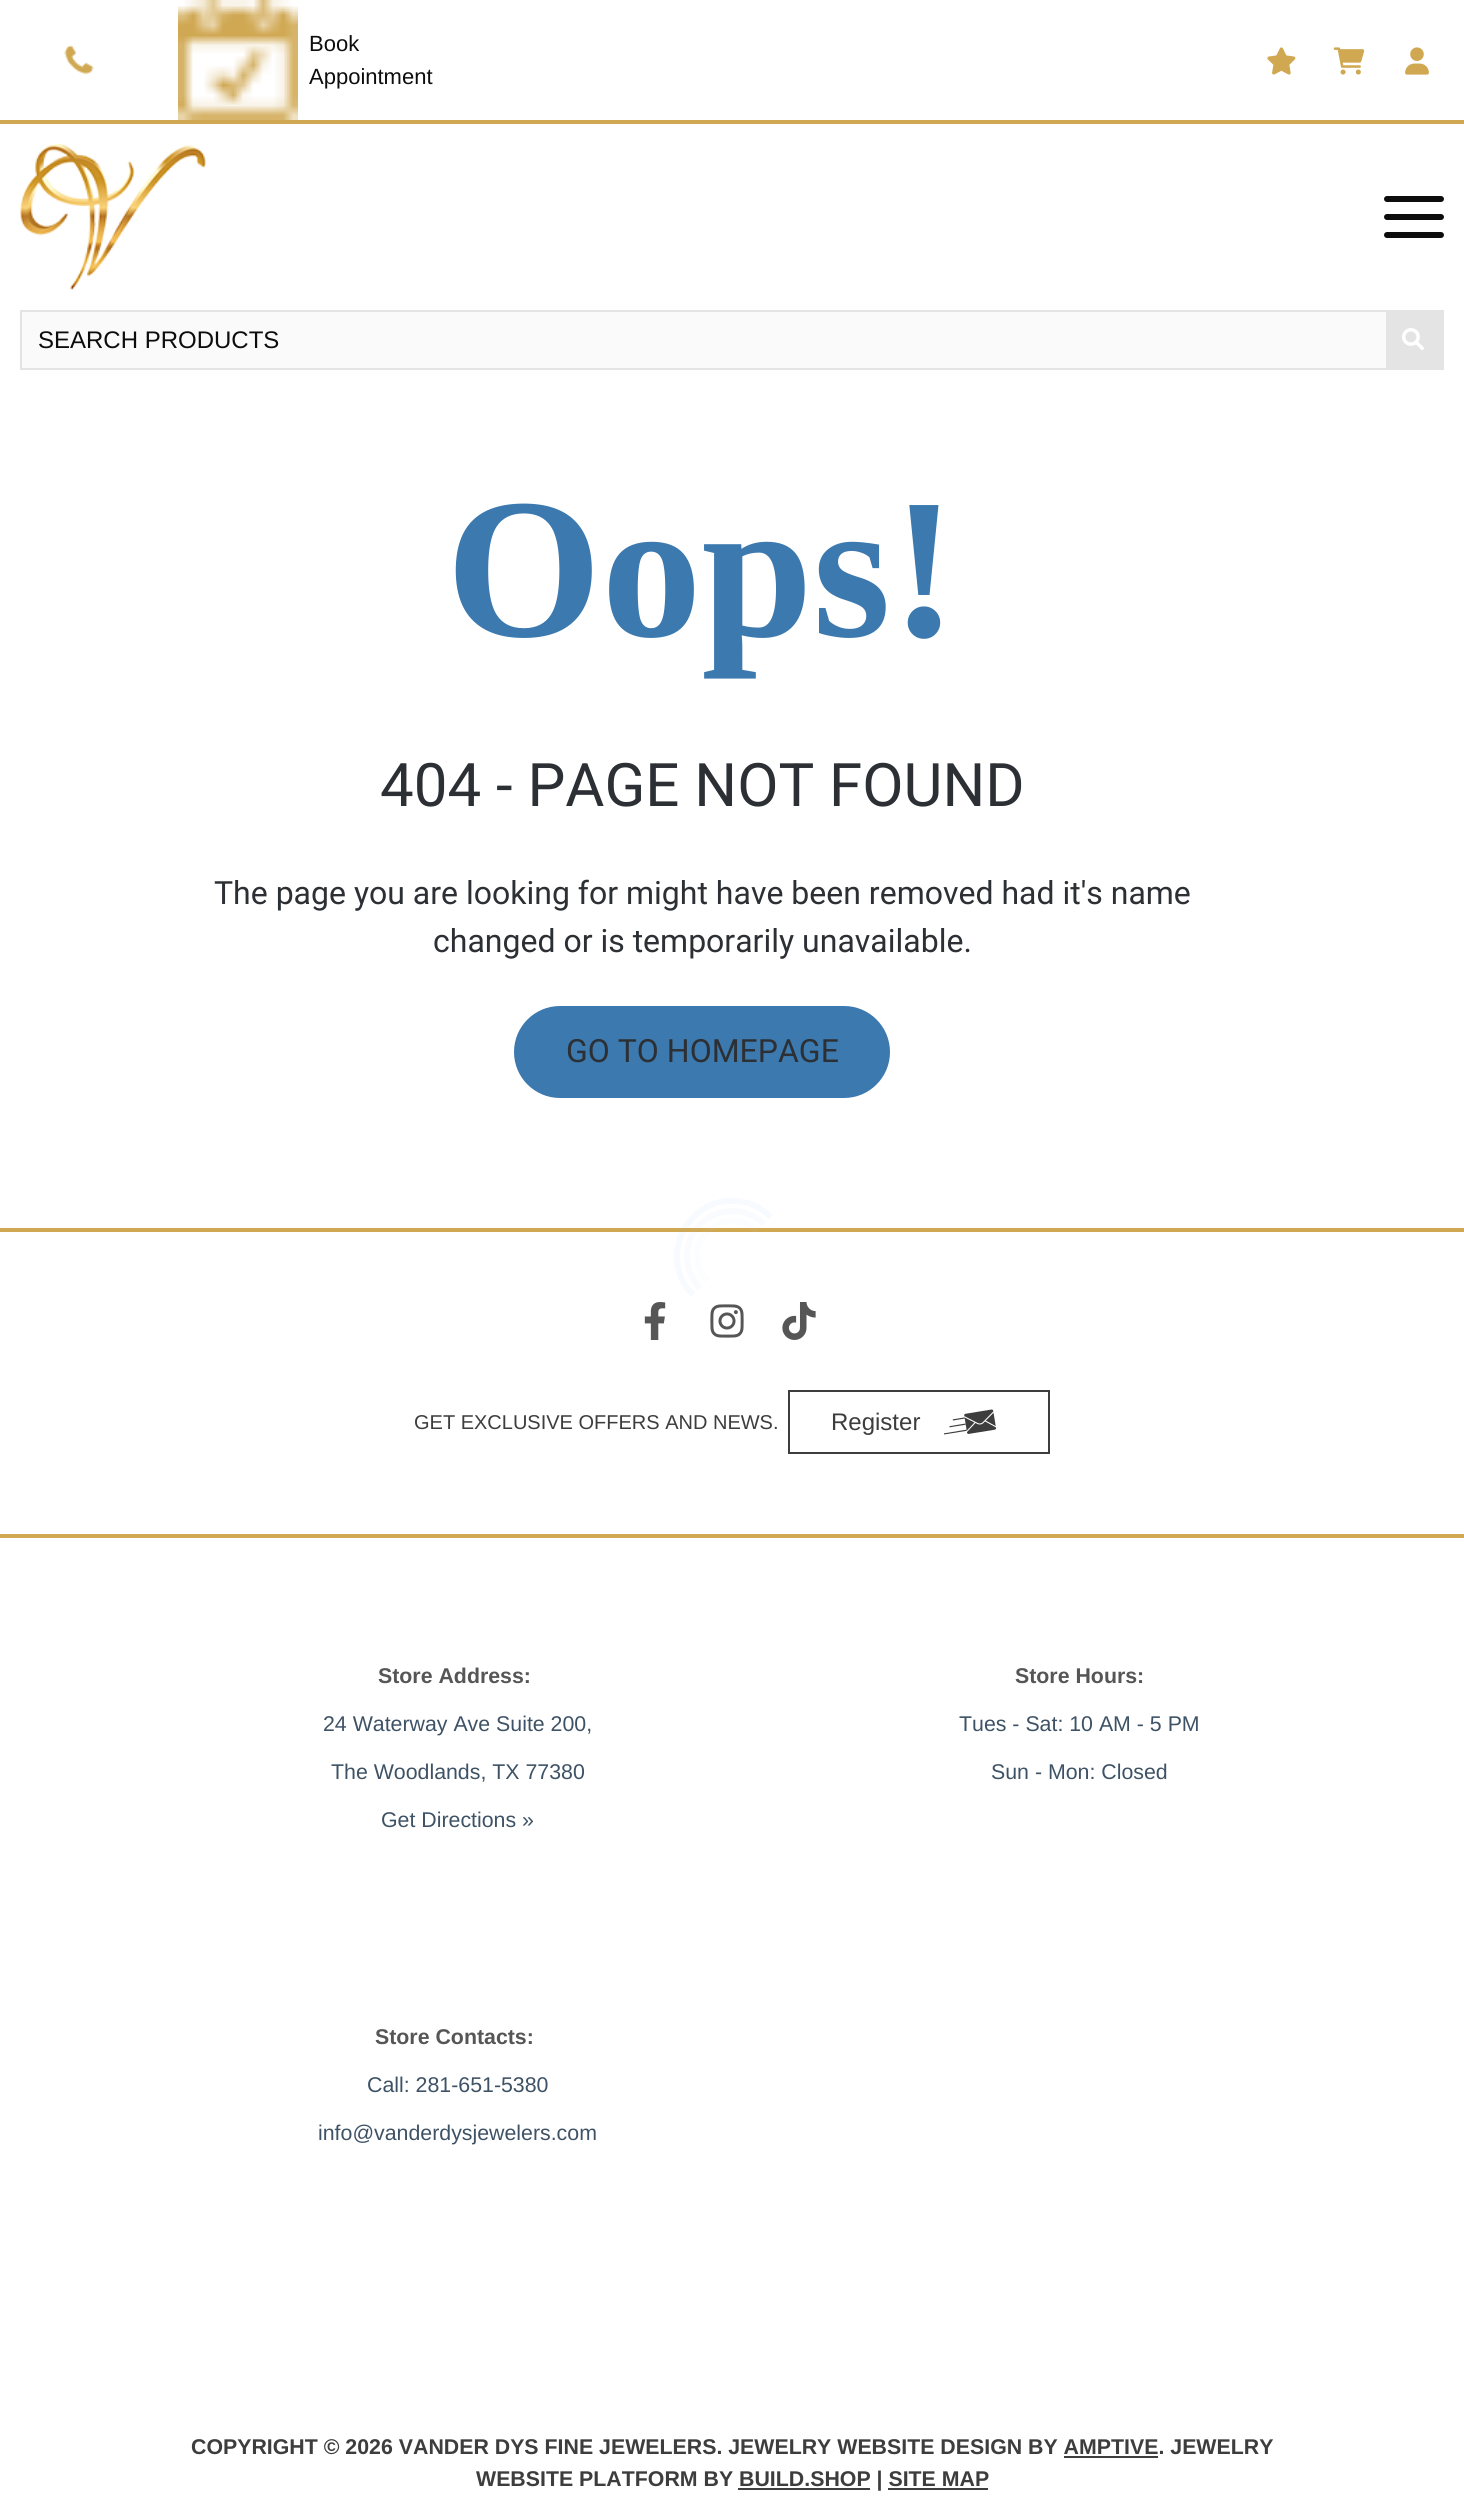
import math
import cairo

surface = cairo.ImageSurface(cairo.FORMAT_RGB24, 1464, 2512)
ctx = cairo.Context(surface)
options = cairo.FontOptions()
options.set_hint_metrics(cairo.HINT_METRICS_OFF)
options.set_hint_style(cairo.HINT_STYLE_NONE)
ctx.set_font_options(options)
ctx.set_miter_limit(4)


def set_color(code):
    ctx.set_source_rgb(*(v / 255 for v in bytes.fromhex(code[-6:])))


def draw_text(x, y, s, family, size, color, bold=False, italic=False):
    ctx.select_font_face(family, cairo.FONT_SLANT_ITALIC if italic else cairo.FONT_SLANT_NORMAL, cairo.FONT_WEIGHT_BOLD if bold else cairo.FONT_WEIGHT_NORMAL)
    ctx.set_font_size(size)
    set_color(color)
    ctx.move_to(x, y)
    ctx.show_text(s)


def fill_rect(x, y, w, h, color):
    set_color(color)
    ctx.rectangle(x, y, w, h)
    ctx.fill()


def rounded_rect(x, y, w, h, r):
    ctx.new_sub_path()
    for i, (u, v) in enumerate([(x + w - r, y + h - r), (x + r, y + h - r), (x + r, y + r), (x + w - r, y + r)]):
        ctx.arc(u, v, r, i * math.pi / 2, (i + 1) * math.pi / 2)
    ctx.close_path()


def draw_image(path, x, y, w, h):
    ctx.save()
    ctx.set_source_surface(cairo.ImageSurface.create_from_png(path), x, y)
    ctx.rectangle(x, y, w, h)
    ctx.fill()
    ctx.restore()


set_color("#ffffff")
ctx.paint()
draw_image("assets/img1.png", 64, 45, 30, 30)
draw_image("assets/img2.png", 178, 0, 120, 120)
draw_text(309, 51, "Book", "Liberation Sans", 22, "#0d0d0d")
draw_text(309, 84, "Appointment", "Liberation Sans", 22, "#0d0d0d")
draw_image("assets/img3.png", 1267, 47, 29, 28)
draw_image("assets/img4.png", 1333, 47, 32, 28)
draw_image("assets/img5.png", 1405, 47, 24, 28)
fill_rect(0, 120, 1464, 4, "#d0a852")
draw_image("assets/img6.png", 20, 144, 186, 146)
set_color("#0d0d0d")
rounded_rect(1384, 196, 60, 6, 3)
ctx.fill()
rounded_rect(1384, 214, 60, 6, 3)
ctx.fill()
rounded_rect(1384, 232, 60, 6, 3)
ctx.fill()
fill_rect(22, 312, 1364, 56, "#fafafa")
fill_rect(20, 310, 1366, 2, "#e4e4e4")
fill_rect(20, 368, 1366, 2, "#e4e4e4")
fill_rect(20, 310, 2, 60, "#e4e4e4")
draw_text(38, 348, "SEARCH PRODUCTS", "Liberation Sans", 24, "#0d0d0d")
fill_rect(1386, 310, 58, 60, "#e4e4e4")
draw_image("assets/img7.png", 1402, 328, 22, 22)
draw_text(446, 636, "Oops!", "Liberation Serif", 200, "#3b79af", bold=True)
draw_text(380, 806, "404 - PAGE NOT FOUND", "Roboto", 60, "#2c3034")
draw_text(214, 904, "The page you are looking for might have been removed had it's name", "Roboto", 32, "#2c3034")
draw_text(433, 952, "changed or is temporarily unavailable.", "Roboto", 32, "#2c3034")
set_color("#3b79af")
rounded_rect(515, 1007, 374, 90, 45)
ctx.fill_preserve()
ctx.stroke()
draw_text(566, 1062, "GO TO HOMEPAGE", "Roboto", 32, "#2c3034")
fill_rect(0, 1228, 1464, 4, "#d0a852")
ctx.new_path()
ctx.move_to(700, 1288)
ctx.curve_to(694, 1281.5, 689.5, 1273.5, 688, 1265)
ctx.curve_to(679, 1221.5, 732.5, 1193, 764, 1224)
ctx.set_source_rgba(0.549, 0.682, 0.949, 0.05)
ctx.set_line_width(6)
ctx.stroke()
ctx.new_path()
ctx.move_to(693, 1295)
ctx.curve_to(655, 1256.5, 689.5, 1191.5, 743, 1202)
ctx.curve_to(753.5, 1204, 763, 1209.5, 771, 1217)
ctx.set_source_rgba(0.369, 0.557, 0.929, 0.05)
ctx.stroke()
ctx.new_path()
ctx.move_to(707.5, 1280.5)
ctx.curve_to(702.5, 1276, 699, 1269.5, 697.5, 1263)
ctx.curve_to(691, 1229, 732.5, 1207, 756.5, 1231.5)
ctx.set_source_rgba(0.729, 0.812, 0.969, 0.05)
ctx.stroke()
draw_image("assets/img8.png", 644, 1302, 22, 38)
draw_image("assets/img9.png", 710, 1304, 34, 34)
draw_image("assets/img10.png", 782, 1302, 34, 38)
draw_text(414, 1429, "GET EXCLUSIVE OFFERS AND NEWS.", "Liberation Sans", 20, "#3d3d3d")
ctx.rectangle(789, 1391, 260, 62)
ctx.set_line_width(2)
ctx.stroke()
draw_text(831, 1430, "Register", "Liberation Sans", 24, "#3d3d3d")
draw_image("assets/img11.png", 944, 1409, 52, 26)
fill_rect(0, 1534, 1464, 4, "#d0a852")
draw_text(378, 1683, "Store Address:", "Liberation Sans", 21.33, "#565656", bold=True)
draw_text(323, 1731, "24 Waterway Ave Suite 200,", "Liberation Sans", 21.33, "#3e5266")
draw_text(331, 1779, "The Woodlands, TX 77380", "Liberation Sans", 21.33, "#3e5266")
draw_text(381, 1827, "Get Directions »", "Liberation Sans", 21.33, "#3e5266")
draw_text(1015, 1683, "Store Hours:", "Liberation Sans", 21.33, "#565656", bold=True)
draw_text(959, 1731, "Tues - Sat: 10 AM - 5 PM", "Liberation Sans", 21.33, "#3e5266")
draw_text(991, 1779, "Sun - Mon: Closed", "Liberation Sans", 21.33, "#3e5266")
draw_text(375, 2044, "Store Contacts:", "Liberation Sans", 21.33, "#565656", bold=True)
draw_text(367, 2092, "Call: 281-651-5380", "Liberation Sans", 21.33, "#3e5266")
draw_text(318, 2140, "info@vanderdysjewelers.com", "Liberation Sans", 21.33, "#3e5266")
draw_text(191, 2454, "COPYRIGHT © 2026 VANDER DYS FINE JEWELERS. JEWELRY WEBSITE DESIGN BY AMPTIVE. JEWELRY", "Liberation Sans", 21.33, "#3d3d3d", bold=True)
fill_rect(1064, 2456, 94, 2, "#3e3e3e")
draw_text(476, 2486, "WEBSITE PLATFORM BY BUILD.SHOP | SITE MAP", "Liberation Sans", 21.33, "#3d3d3d", bold=True)
fill_rect(738, 2488, 132, 2, "#3e3e3e")
fill_rect(888, 2488, 100, 2, "#3e3e3e")
surface.write_to_png("output.png")
